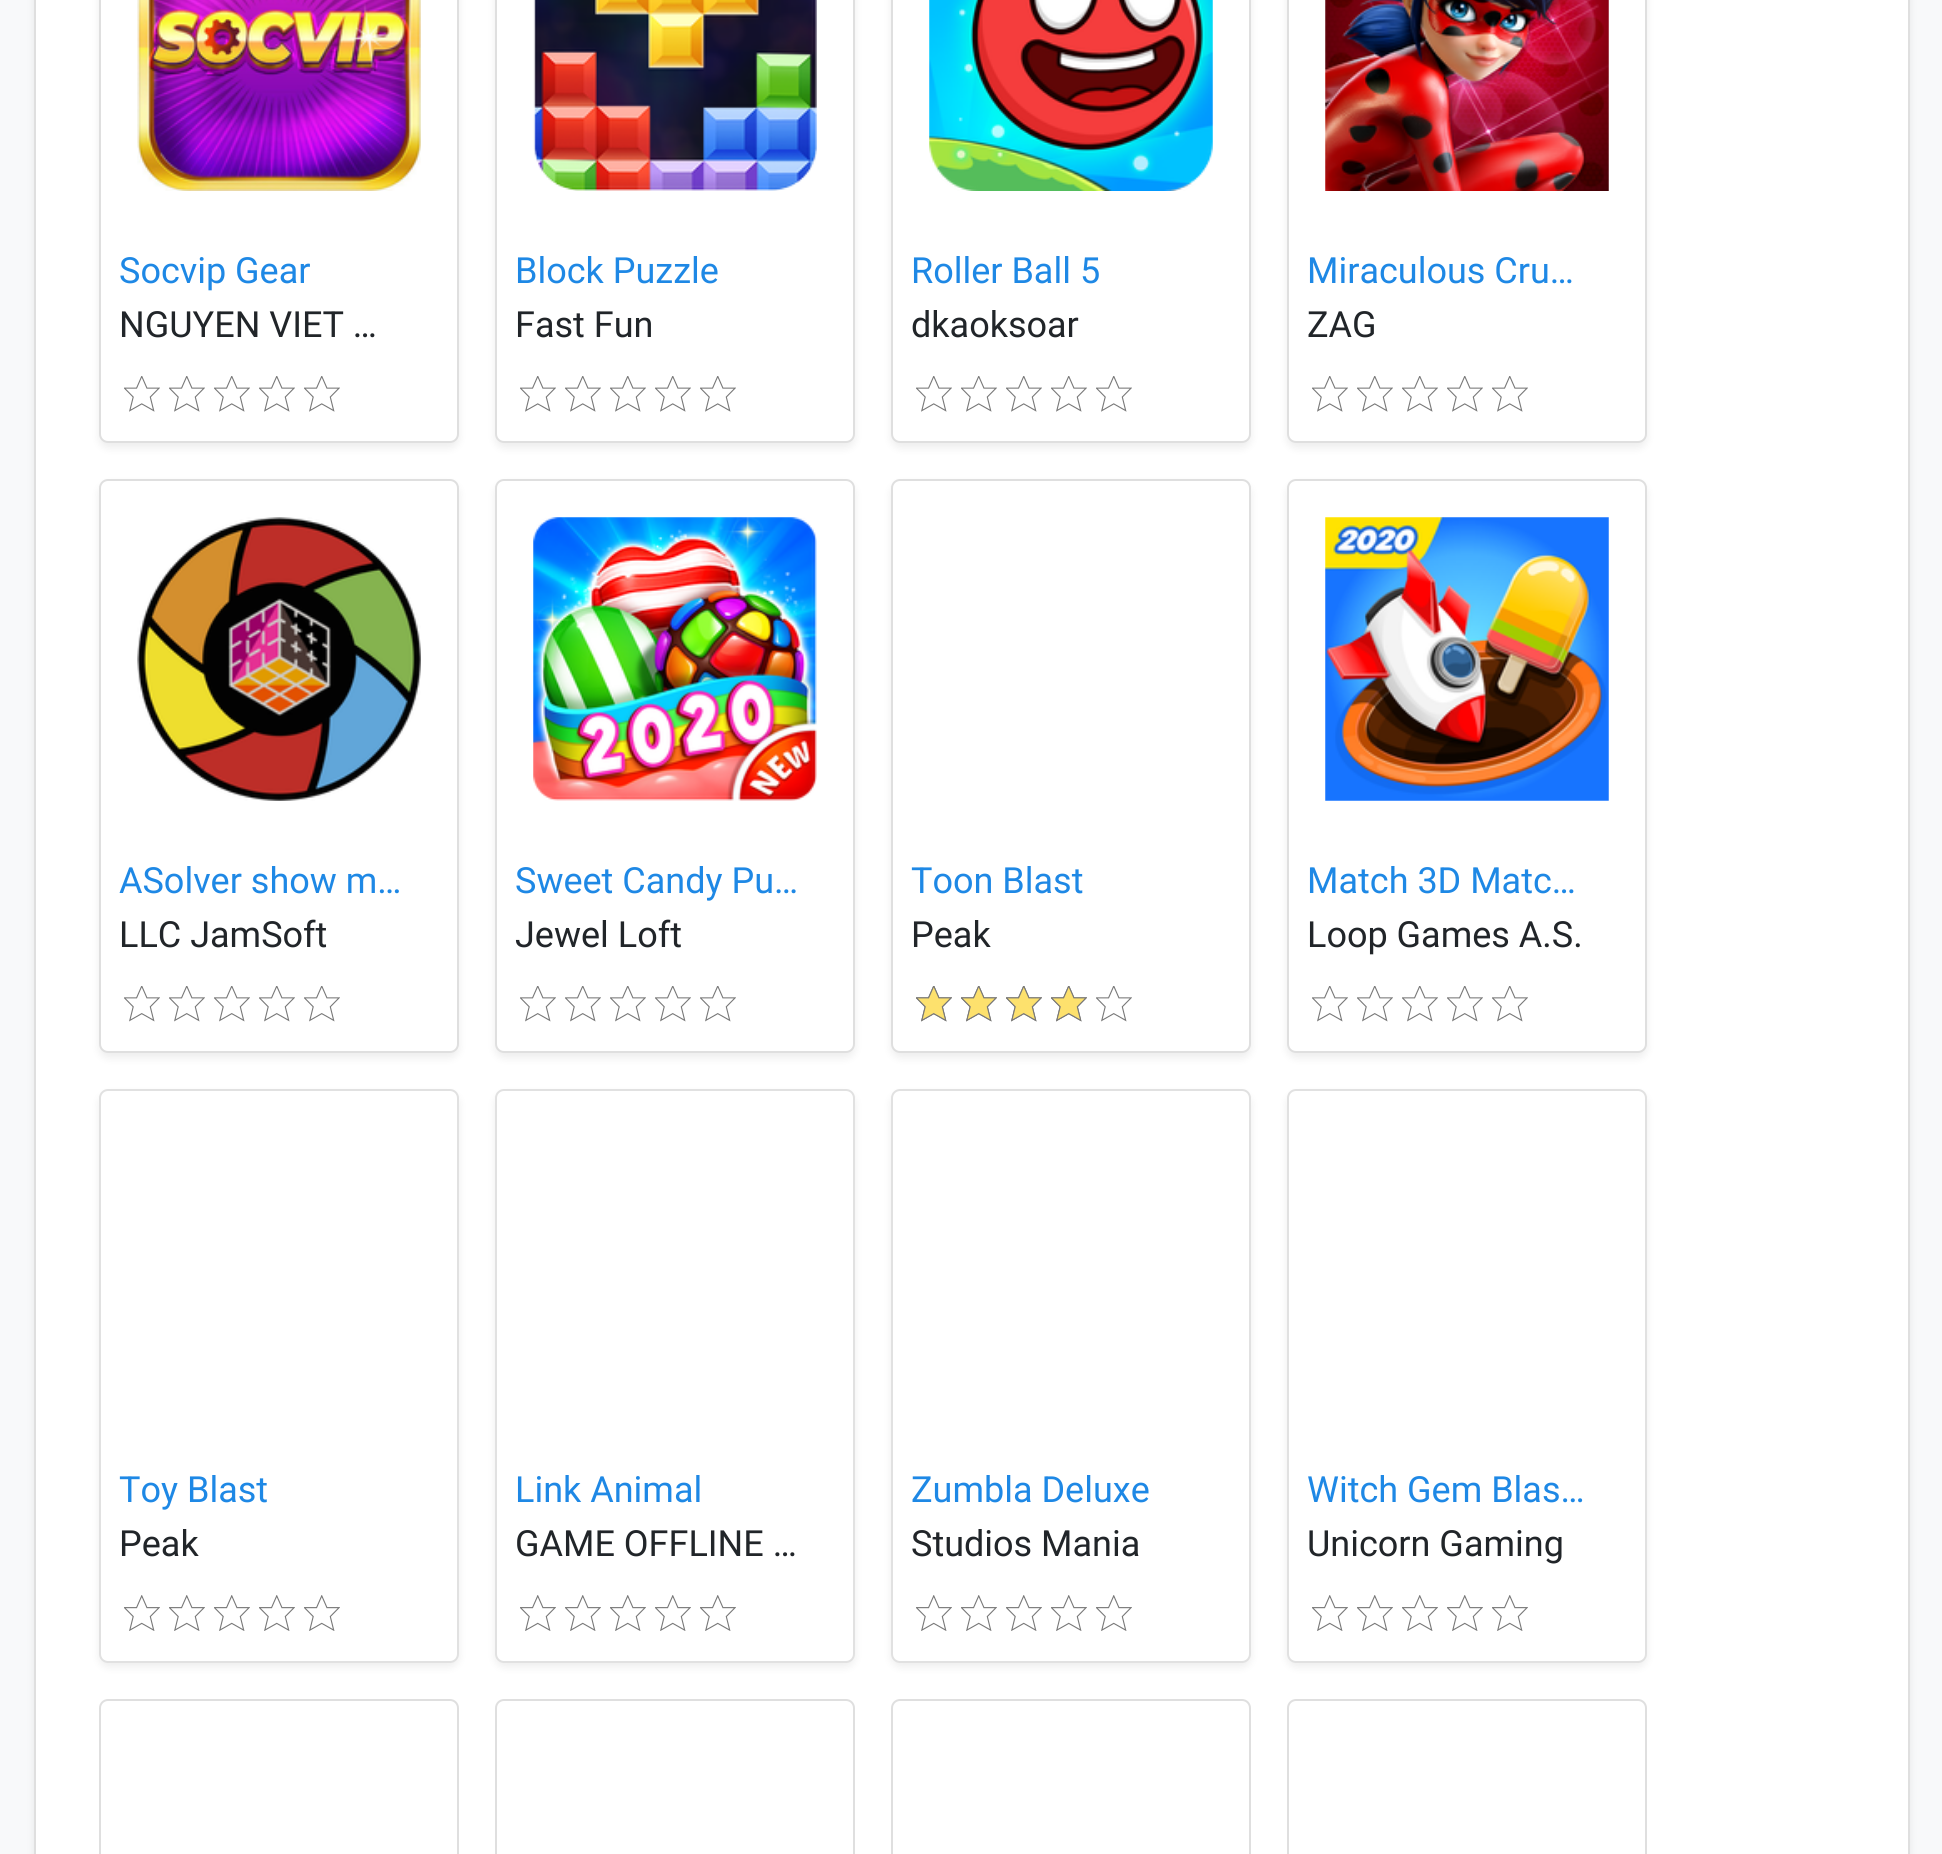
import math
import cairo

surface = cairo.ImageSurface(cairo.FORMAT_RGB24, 1942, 1854)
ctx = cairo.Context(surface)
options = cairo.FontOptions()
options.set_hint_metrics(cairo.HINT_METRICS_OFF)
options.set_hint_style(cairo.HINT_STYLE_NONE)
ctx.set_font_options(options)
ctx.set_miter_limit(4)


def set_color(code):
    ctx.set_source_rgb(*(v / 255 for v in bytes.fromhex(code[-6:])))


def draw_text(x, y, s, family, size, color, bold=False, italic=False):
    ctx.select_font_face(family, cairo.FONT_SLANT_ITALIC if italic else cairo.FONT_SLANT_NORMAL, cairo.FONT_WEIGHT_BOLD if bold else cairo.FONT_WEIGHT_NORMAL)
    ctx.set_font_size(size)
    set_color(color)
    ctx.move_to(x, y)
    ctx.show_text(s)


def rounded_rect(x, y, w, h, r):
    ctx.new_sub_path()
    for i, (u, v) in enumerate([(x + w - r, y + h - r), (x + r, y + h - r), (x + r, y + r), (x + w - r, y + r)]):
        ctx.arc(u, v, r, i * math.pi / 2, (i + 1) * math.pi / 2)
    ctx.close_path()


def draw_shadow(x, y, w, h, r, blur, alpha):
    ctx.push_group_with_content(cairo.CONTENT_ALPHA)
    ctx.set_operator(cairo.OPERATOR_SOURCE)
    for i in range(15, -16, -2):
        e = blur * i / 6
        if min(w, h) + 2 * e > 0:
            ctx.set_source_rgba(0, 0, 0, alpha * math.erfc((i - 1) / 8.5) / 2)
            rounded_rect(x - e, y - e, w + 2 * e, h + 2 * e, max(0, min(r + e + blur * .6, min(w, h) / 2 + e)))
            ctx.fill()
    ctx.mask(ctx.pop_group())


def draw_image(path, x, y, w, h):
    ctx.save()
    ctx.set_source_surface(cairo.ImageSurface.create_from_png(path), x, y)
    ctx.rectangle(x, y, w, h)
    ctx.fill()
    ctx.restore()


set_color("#f8f9fa")
ctx.paint()
set_color("#000000")
draw_shadow(34, -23, 1876, 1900, 9, 4.5, 0.07)
set_color("#ffffff")
ctx.rectangle(35, -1, 1874, 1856)
ctx.fill_preserve()
set_color("#dfdfdf")
ctx.stroke()
set_color("#000000")
draw_shadow(99, -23, 360, 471, 9, 4.5, 0.07)
set_color("#ffffff")
rounded_rect(100, -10, 358, 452, 8)
ctx.fill_preserve()
set_color("#dfdfdf")
ctx.stroke()
draw_image("assets/img1.png", 137, 0, 284, 191)
draw_text(119, 283, "Socvip Gear", "Roboto", 36, "#1e88e5")
draw_text(119, 337, "NGUYEN VIET …", "Roboto", 36, "#212529")
draw_image("assets/img2.png", 124, 376, 36, 36)
draw_image("assets/img2.png", 169, 376, 36, 36)
draw_image("assets/img2.png", 214, 376, 36, 36)
draw_image("assets/img2.png", 259, 376, 36, 36)
draw_image("assets/img2.png", 304, 376, 36, 36)
set_color("#000000")
draw_shadow(495, -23, 360, 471, 9, 4.5, 0.07)
set_color("#ffffff")
rounded_rect(496, -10, 358, 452, 8)
ctx.fill_preserve()
set_color("#dfdfdf")
ctx.stroke()
draw_image("assets/img3.png", 533, 0, 284, 191)
draw_text(515, 283, "Block Puzzle", "Roboto", 36, "#1e88e5")
draw_text(515, 337, "Fast Fun", "Roboto", 36, "#212529")
draw_image("assets/img2.png", 520, 376, 36, 36)
draw_image("assets/img2.png", 565, 376, 36, 36)
draw_image("assets/img2.png", 610, 376, 36, 36)
draw_image("assets/img2.png", 655, 376, 36, 36)
draw_image("assets/img2.png", 700, 376, 36, 36)
set_color("#000000")
draw_shadow(891, -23, 360, 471, 9, 4.5, 0.07)
set_color("#ffffff")
rounded_rect(892, -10, 358, 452, 8)
ctx.fill_preserve()
set_color("#dfdfdf")
ctx.stroke()
draw_image("assets/img4.png", 929, 0, 284, 191)
draw_text(911, 283, "Roller Ball 5", "Roboto", 36, "#1e88e5")
draw_text(911, 337, "dkaoksoar", "Roboto", 36, "#212529")
draw_image("assets/img2.png", 916, 376, 36, 36)
draw_image("assets/img2.png", 961, 376, 36, 36)
draw_image("assets/img2.png", 1006, 376, 36, 36)
draw_image("assets/img2.png", 1051, 376, 36, 36)
draw_image("assets/img2.png", 1096, 376, 36, 36)
set_color("#000000")
draw_shadow(1287, -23, 360, 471, 9, 4.5, 0.07)
set_color("#ffffff")
rounded_rect(1288, -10, 358, 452, 8)
ctx.fill_preserve()
set_color("#dfdfdf")
ctx.stroke()
draw_image("assets/img5.png", 1325, 0, 284, 191)
draw_text(1307, 283, "Miraculous Cru…", "Roboto", 36, "#1e88e5")
draw_text(1307, 337, "ZAG", "Roboto", 36, "#212529")
draw_image("assets/img2.png", 1312, 376, 36, 36)
draw_image("assets/img2.png", 1357, 376, 36, 36)
draw_image("assets/img2.png", 1402, 376, 36, 36)
draw_image("assets/img2.png", 1447, 376, 36, 36)
draw_image("assets/img2.png", 1492, 376, 36, 36)
set_color("#000000")
draw_shadow(99, 484, 360, 574, 9, 4.5, 0.07)
set_color("#ffffff")
rounded_rect(100, 480, 358, 572, 8)
ctx.fill_preserve()
set_color("#dfdfdf")
ctx.stroke()
draw_image("assets/img6.png", 137, 517, 284, 284)
draw_text(119, 893, "ASolver show m…", "Roboto", 36, "#1e88e5")
draw_text(119, 947, "LLC JamSoft", "Roboto", 36, "#212529")
draw_image("assets/img7.png", 124, 986, 36, 36)
draw_image("assets/img7.png", 169, 986, 36, 36)
draw_image("assets/img7.png", 214, 986, 36, 36)
draw_image("assets/img7.png", 259, 986, 36, 36)
draw_image("assets/img7.png", 304, 986, 36, 36)
set_color("#000000")
draw_shadow(495, 484, 360, 574, 9, 4.5, 0.07)
set_color("#ffffff")
rounded_rect(496, 480, 358, 572, 8)
ctx.fill_preserve()
set_color("#dfdfdf")
ctx.stroke()
draw_image("assets/img8.png", 533, 517, 284, 284)
draw_text(515, 893, "Sweet Candy Pu…", "Roboto", 36, "#1e88e5")
draw_text(515, 947, "Jewel Loft", "Roboto", 36, "#212529")
draw_image("assets/img7.png", 520, 986, 36, 36)
draw_image("assets/img7.png", 565, 986, 36, 36)
draw_image("assets/img7.png", 610, 986, 36, 36)
draw_image("assets/img7.png", 655, 986, 36, 36)
draw_image("assets/img7.png", 700, 986, 36, 36)
set_color("#000000")
draw_shadow(891, 484, 360, 574, 9, 4.5, 0.07)
set_color("#ffffff")
rounded_rect(892, 480, 358, 572, 8)
ctx.fill_preserve()
set_color("#dfdfdf")
ctx.stroke()
draw_text(911, 893, "Toon Blast", "Roboto", 36, "#1e88e5")
draw_text(911, 947, "Peak", "Roboto", 36, "#212529")
draw_image("assets/img7.png", 916, 986, 36, 36)
draw_image("assets/img7.png", 961, 986, 36, 36)
draw_image("assets/img7.png", 1006, 986, 36, 36)
draw_image("assets/img7.png", 1051, 986, 36, 36)
draw_image("assets/img7.png", 1096, 986, 36, 36)
draw_image("assets/img9.png", 916, 986, 36, 36)
draw_image("assets/img9.png", 961, 986, 36, 36)
draw_image("assets/img9.png", 1006, 986, 36, 36)
draw_image("assets/img9.png", 1051, 986, 36, 36)
set_color("#000000")
draw_shadow(1287, 484, 360, 574, 9, 4.5, 0.07)
set_color("#ffffff")
rounded_rect(1288, 480, 358, 572, 8)
ctx.fill_preserve()
set_color("#dfdfdf")
ctx.stroke()
draw_image("assets/img10.png", 1325, 517, 284, 284)
draw_text(1307, 893, "Match 3D Matc…", "Roboto", 36, "#1e88e5")
draw_text(1307, 947, "Loop Games A.S.", "Roboto", 36, "#212529")
draw_image("assets/img7.png", 1312, 986, 36, 36)
draw_image("assets/img7.png", 1357, 986, 36, 36)
draw_image("assets/img7.png", 1402, 986, 36, 36)
draw_image("assets/img7.png", 1447, 986, 36, 36)
draw_image("assets/img7.png", 1492, 986, 36, 36)
set_color("#000000")
draw_shadow(99, 1094, 360, 573, 9, 4.5, 0.07)
set_color("#ffffff")
rounded_rect(99, 1089, 360, 574, 9)
ctx.fill()
rounded_rect(100, 1090, 358, 572, 8)
ctx.set_source_rgba(0, 0, 0, 0.12)
ctx.stroke()
draw_text(119, 1502, "Toy Blast", "Roboto", 36, "#1e88e5")
draw_text(119, 1556, "Peak", "Roboto", 36, "#212529")
draw_image("assets/img11.png", 124, 1595, 36, 36)
draw_image("assets/img11.png", 169, 1595, 36, 36)
draw_image("assets/img11.png", 214, 1595, 36, 36)
draw_image("assets/img11.png", 259, 1595, 36, 36)
draw_image("assets/img11.png", 304, 1595, 36, 36)
set_color("#000000")
draw_shadow(495, 1094, 360, 573, 9, 4.5, 0.07)
set_color("#ffffff")
rounded_rect(495, 1089, 360, 574, 9)
ctx.fill()
rounded_rect(496, 1090, 358, 572, 8)
ctx.set_source_rgba(0, 0, 0, 0.12)
ctx.stroke()
draw_text(515, 1502, "Link Animal", "Roboto", 36, "#1e88e5")
draw_text(515, 1556, "GAME OFFLINE …", "Roboto", 36, "#212529")
draw_image("assets/img11.png", 520, 1595, 36, 36)
draw_image("assets/img11.png", 565, 1595, 36, 36)
draw_image("assets/img11.png", 610, 1595, 36, 36)
draw_image("assets/img11.png", 655, 1595, 36, 36)
draw_image("assets/img11.png", 700, 1595, 36, 36)
set_color("#000000")
draw_shadow(891, 1094, 360, 573, 9, 4.5, 0.07)
set_color("#ffffff")
rounded_rect(891, 1089, 360, 574, 9)
ctx.fill()
rounded_rect(892, 1090, 358, 572, 8)
ctx.set_source_rgba(0, 0, 0, 0.12)
ctx.stroke()
draw_text(911, 1502, "Zumbla Deluxe", "Roboto", 36, "#1e88e5")
draw_text(911, 1556, "Studios Mania", "Roboto", 36, "#212529")
draw_image("assets/img11.png", 916, 1595, 36, 36)
draw_image("assets/img11.png", 961, 1595, 36, 36)
draw_image("assets/img11.png", 1006, 1595, 36, 36)
draw_image("assets/img11.png", 1051, 1595, 36, 36)
draw_image("assets/img11.png", 1096, 1595, 36, 36)
set_color("#000000")
draw_shadow(1287, 1094, 360, 573, 9, 4.5, 0.07)
set_color("#ffffff")
rounded_rect(1287, 1089, 360, 574, 9)
ctx.fill()
rounded_rect(1288, 1090, 358, 572, 8)
ctx.set_source_rgba(0, 0, 0, 0.12)
ctx.stroke()
draw_text(1307, 1502, "Witch Gem Blas…", "Roboto", 36, "#1e88e5")
draw_text(1307, 1556, "Unicorn Gaming", "Roboto", 36, "#212529")
draw_image("assets/img11.png", 1312, 1595, 36, 36)
draw_image("assets/img11.png", 1357, 1595, 36, 36)
draw_image("assets/img11.png", 1402, 1595, 36, 36)
draw_image("assets/img11.png", 1447, 1595, 36, 36)
draw_image("assets/img11.png", 1492, 1595, 36, 36)
rounded_rect(100, 1700, 358, 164, 8)
set_color("#dfdfdf")
ctx.stroke()
rounded_rect(496, 1700, 358, 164, 8)
ctx.stroke()
rounded_rect(892, 1700, 358, 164, 8)
ctx.stroke()
rounded_rect(1288, 1700, 358, 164, 8)
ctx.stroke()
surface.write_to_png("output.png")
